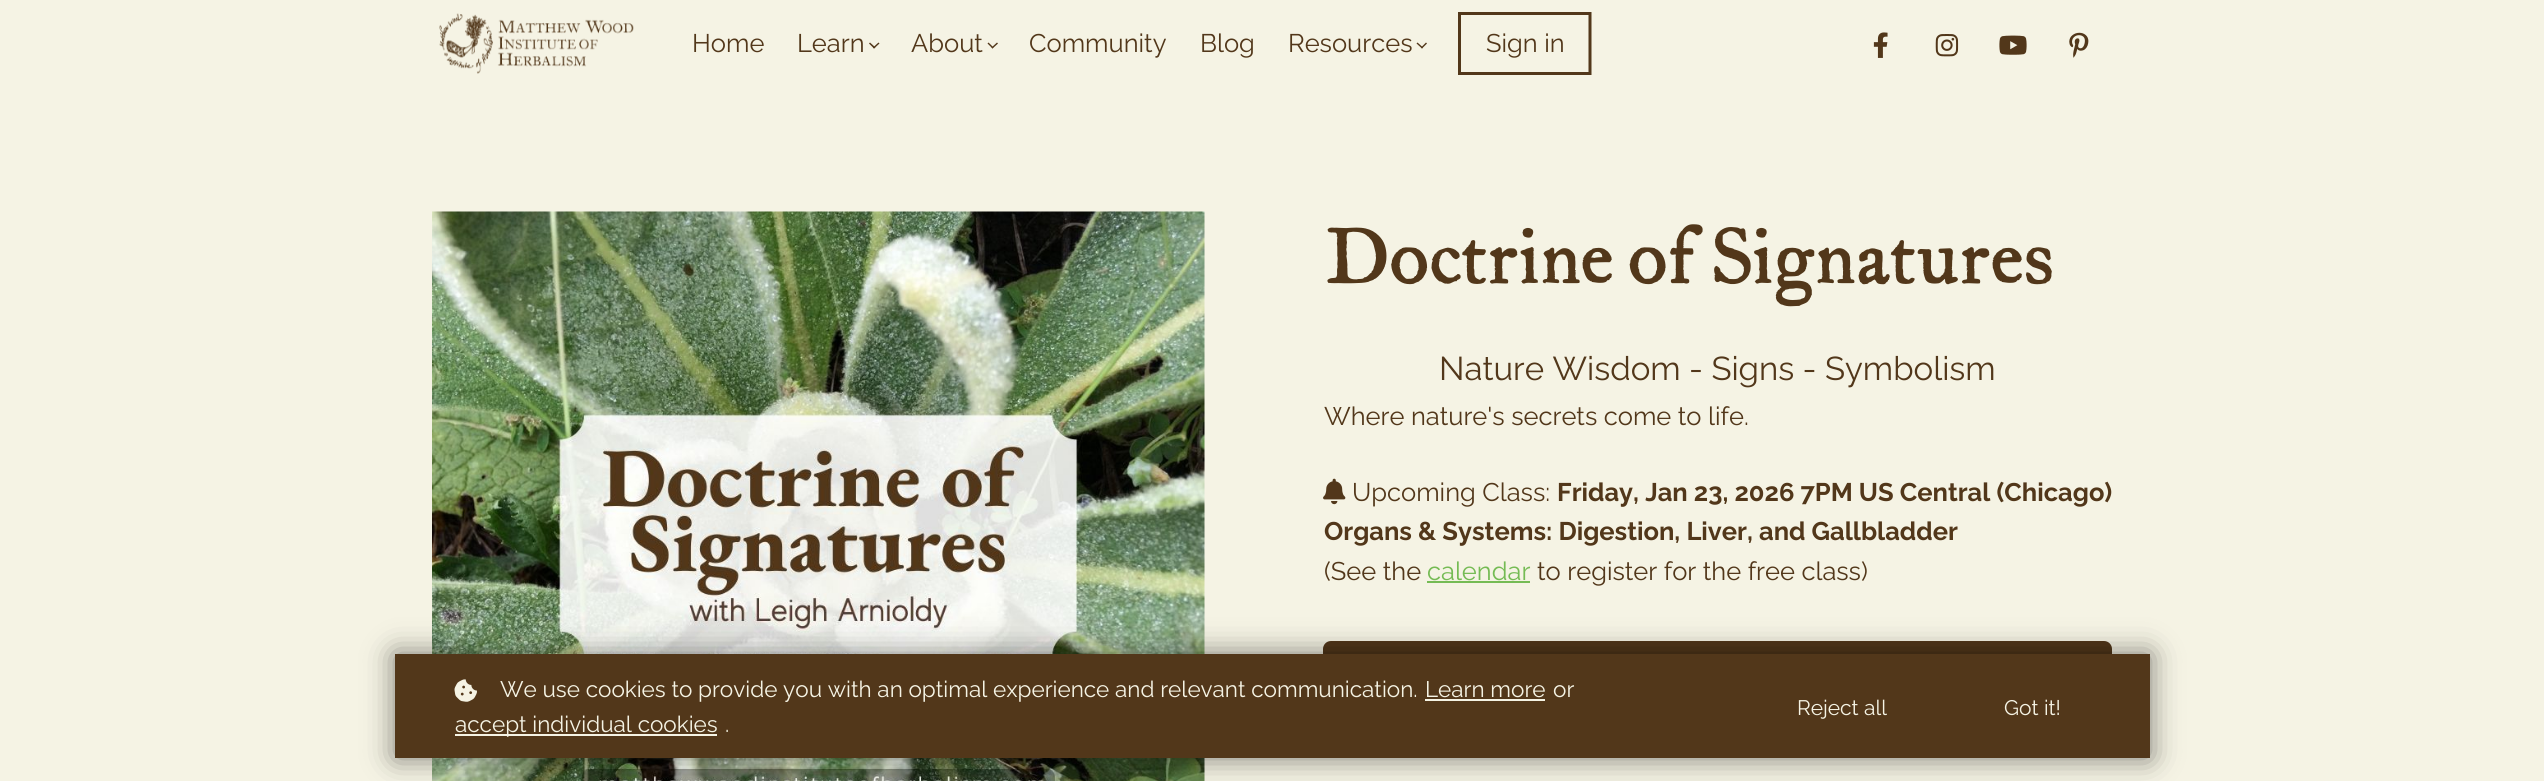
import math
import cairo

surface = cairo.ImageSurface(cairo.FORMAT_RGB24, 2544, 781)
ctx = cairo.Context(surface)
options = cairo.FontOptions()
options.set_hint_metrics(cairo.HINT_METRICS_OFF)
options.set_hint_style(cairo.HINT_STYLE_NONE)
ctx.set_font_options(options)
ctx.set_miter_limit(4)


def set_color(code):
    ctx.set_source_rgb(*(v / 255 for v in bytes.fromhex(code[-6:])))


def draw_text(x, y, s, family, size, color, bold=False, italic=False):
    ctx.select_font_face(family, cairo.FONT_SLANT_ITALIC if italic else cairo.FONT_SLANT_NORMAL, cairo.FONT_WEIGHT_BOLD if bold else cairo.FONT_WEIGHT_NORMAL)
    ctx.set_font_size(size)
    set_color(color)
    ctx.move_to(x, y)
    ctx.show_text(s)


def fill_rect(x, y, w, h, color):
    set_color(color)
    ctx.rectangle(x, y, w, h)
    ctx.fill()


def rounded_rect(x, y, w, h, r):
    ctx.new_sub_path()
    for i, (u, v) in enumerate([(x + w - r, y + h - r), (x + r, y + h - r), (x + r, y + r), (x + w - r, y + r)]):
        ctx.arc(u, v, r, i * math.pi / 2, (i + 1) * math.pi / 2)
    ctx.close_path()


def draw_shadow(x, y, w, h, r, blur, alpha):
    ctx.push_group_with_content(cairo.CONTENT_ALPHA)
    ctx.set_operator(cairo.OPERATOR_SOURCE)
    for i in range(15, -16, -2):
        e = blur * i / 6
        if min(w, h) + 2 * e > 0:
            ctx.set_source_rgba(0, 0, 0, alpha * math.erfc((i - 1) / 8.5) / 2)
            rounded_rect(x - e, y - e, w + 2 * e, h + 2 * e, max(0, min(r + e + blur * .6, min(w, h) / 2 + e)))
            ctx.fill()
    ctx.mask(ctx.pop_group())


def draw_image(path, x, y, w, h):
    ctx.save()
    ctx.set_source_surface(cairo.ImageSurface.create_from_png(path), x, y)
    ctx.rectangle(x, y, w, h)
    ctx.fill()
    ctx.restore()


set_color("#f5f3e4")
ctx.paint()
draw_image("assets/img1.png", 439, 13, 195, 61)
draw_text(692, 52, "Home", "Raleway", 25.5, "#52371a")
draw_text(797, 52, "Learn", "Raleway", 25.5, "#52371a")
ctx.new_path()
ctx.move_to(879.5, 43.5)
ctx.line_to(874, 48.5)
ctx.line_to(873, 47.5)
ctx.line_to(878.5, 42.5)
ctx.close_path()
ctx.fill()
ctx.new_path()
ctx.move_to(875.5, 47.5)
ctx.line_to(874, 48.5)
ctx.line_to(869, 43.5)
ctx.line_to(870, 42.5)
ctx.close_path()
ctx.fill()
draw_text(911, 52, "About", "Raleway", 25.5, "#52371a")
ctx.new_path()
ctx.move_to(998, 43.5)
ctx.line_to(992.5, 48.5)
ctx.line_to(991.5, 47.5)
ctx.line_to(997, 42.5)
ctx.close_path()
ctx.fill()
ctx.new_path()
ctx.move_to(993.5, 47.5)
ctx.line_to(992.5, 48.5)
ctx.line_to(987.5, 43.5)
ctx.line_to(988.5, 42.5)
ctx.close_path()
ctx.fill()
draw_text(1029, 52, "Community", "Raleway", 25.5, "#52371a")
draw_text(1200, 52, "Blog", "Raleway", 25.5, "#52371a")
draw_text(1288, 52, "Resources", "Raleway", 25.5, "#52371a")
ctx.new_path()
ctx.move_to(1427, 43.5)
ctx.line_to(1422, 48.5)
ctx.line_to(1421, 47.5)
ctx.line_to(1426, 42.5)
ctx.close_path()
ctx.fill()
ctx.new_path()
ctx.move_to(1423, 47.5)
ctx.line_to(1422, 48.5)
ctx.line_to(1416.5, 43.5)
ctx.line_to(1417.5, 42.5)
ctx.close_path()
ctx.fill()
ctx.new_path()
ctx.move_to(1459.5, 13.5)
ctx.line_to(1590, 13.5)
ctx.line_to(1590, 73.5)
ctx.line_to(1459.5, 73.5)
ctx.close_path()
ctx.set_line_width(3)
ctx.stroke()
draw_text(1486, 52, "Sign in", "Raleway", 25.5, "#52371a")
draw_image("assets/img2.png", 1873, 32, 15, 26)
draw_image("assets/img3.png", 1935, 34, 24, 23)
draw_image("assets/img4.png", 1999, 35, 28, 20)
draw_image("assets/img5.png", 2069, 32, 20, 26)
draw_image("assets/img6.png", 432, 211, 773, 570)
draw_text(1324, 283, "Doctrine of Signatures", "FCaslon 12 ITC", 81, "#52371a", bold=True)
draw_text(1439, 380, "Nature Wisdom - Signs - Symbolism", "Raleway", 33, "#52371a")
draw_text(1324, 425, "Where nature's secrets come to life.", "Raleway", 25.5, "#52371a")
draw_image("assets/img7.png", 1323, 478, 23, 27)
draw_text(1352, 501, "Upcoming Class:", "Raleway", 25.5, "#52371a")
draw_text(1557, 501, "Friday, Jan 23, 2026 7PM US Central (Chicago)", "Raleway", 25.5, "#52371a", bold=True)
draw_text(1324, 540, "Organs & Systems: Digestion, Liver, and Gallbladder", "Raleway", 25.5, "#52371a", bold=True)
draw_text(1324, 580, "(See the", "Raleway", 25.5, "#52371a")
draw_text(1427, 580, "calendar", "Raleway", 25.5, "#75bb54")
fill_rect(1427, 581, 103, 2, "#75bb54")
draw_text(1537, 580, "to register for the free class)", "Raleway", 25.5, "#52371a")
rounded_rect(1323, 641, 789, 79, 8)
ctx.fill()
set_color("#000000")
draw_shadow(395, 654, 1755, 104, 0, 15, 0.5)
fill_rect(395, 654, 1755, 104, "#52371a")
draw_image("assets/img8.png", 454, 679, 23, 23)
draw_text(500, 697, "We use cookies to provide you with an optimal experience and relevant communication.", "Raleway", 22.5, "#f5f3e4")
draw_text(1425, 697, "Learn more", "Raleway", 22.5, "#f5f3e4")
fill_rect(1425, 699, 120, 2, "#f5f3e4")
draw_text(1553, 697, "or", "Raleway", 22.5, "#f5f3e4")
fill_rect(455, 734, 262, 2, "#f5f3e4")
draw_text(455, 732, "accept individual cookies", "Raleway", 22.5, "#f5f3e4")
draw_text(725, 732, ".", "Raleway", 22.5, "#f5f3e4")
draw_text(1797, 715, "Reject all", "Raleway", 21, "#f5f3e4")
draw_text(2004, 715, "Got it!", "Raleway", 21, "#f5f3e4")
surface.write_to_png("output.png")
